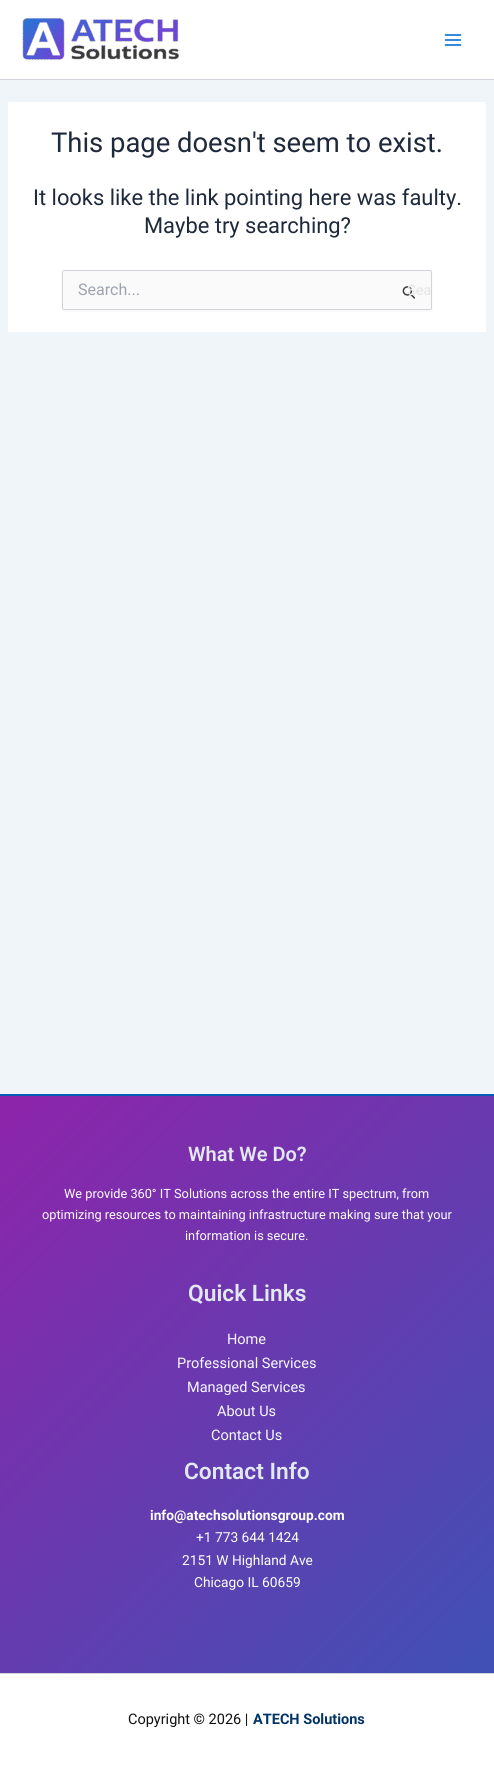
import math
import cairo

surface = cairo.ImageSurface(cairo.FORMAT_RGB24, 494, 1774)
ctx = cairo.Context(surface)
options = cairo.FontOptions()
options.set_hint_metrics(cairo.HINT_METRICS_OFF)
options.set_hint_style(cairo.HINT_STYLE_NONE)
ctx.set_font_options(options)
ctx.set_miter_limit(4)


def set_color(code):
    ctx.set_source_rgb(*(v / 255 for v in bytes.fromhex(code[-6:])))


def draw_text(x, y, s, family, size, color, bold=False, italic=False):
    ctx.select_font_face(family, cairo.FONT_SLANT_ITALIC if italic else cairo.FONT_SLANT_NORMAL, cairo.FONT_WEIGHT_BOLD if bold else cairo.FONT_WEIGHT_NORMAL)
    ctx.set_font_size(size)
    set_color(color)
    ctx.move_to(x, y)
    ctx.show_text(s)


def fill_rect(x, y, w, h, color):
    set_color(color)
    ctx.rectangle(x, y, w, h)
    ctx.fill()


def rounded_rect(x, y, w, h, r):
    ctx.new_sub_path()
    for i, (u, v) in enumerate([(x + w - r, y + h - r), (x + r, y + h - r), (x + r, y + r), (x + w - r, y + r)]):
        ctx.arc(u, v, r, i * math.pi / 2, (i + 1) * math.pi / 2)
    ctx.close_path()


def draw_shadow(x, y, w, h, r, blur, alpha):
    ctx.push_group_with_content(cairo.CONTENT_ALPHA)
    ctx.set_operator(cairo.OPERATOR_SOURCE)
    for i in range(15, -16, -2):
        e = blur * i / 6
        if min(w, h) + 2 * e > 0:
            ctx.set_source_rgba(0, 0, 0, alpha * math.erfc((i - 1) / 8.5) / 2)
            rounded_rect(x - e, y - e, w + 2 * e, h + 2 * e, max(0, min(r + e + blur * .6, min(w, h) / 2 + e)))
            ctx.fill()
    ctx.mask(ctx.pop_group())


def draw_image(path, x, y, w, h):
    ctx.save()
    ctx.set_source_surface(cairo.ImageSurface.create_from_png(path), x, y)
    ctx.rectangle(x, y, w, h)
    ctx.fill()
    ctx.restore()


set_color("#f0f5fa")
ctx.paint()
fill_rect(0, 0, 494, 79, "#ffffff")
fill_rect(0, 79, 494, 1, "#d1d5db")
draw_image("assets/img1.png", 22, 18, 157, 43)
draw_image("assets/img2.png", 444, 34, 18, 12)
fill_rect(8, 102, 478, 230, "#ffffff")
draw_text(51, 152, "This page doesn't seem to exist.", "Roboto", 27.4, "#1e293b")
draw_text(33, 205, "It looks like the link pointing here was faulty.", "Roboto", 21.9, "#1e293b")
draw_text(144, 233, "Maybe try searching?", "Roboto", 21.9, "#1e293b")
set_color("#000000")
draw_shadow(62, 271, 370, 40, 2, 1, 0.05)
set_color("#fafafa")
rounded_rect(62.5, 270.5, 369, 39, 1.5)
ctx.fill_preserve()
set_color("#d1d5db")
ctx.set_line_width(1)
ctx.stroke()
draw_text(78, 295, "Search...", "Roboto", 16, "#9ca3af")
draw_image("assets/img3.png", 402, 286, 13, 13)
draw_text(407, 295, "Sea", "Roboto Medium", 14.5, "#e8e8e8")
gradient = cairo.LinearGradient(-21, 1117, 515, 1652)
gradient.add_color_stop_rgba(0, 0.557, 0.141, 0.667, 1)
gradient.add_color_stop_rgba(1, 0.247, 0.318, 0.71, 1)
ctx.set_source(gradient)
ctx.rectangle(0, 1096, 494, 577)
ctx.fill()
fill_rect(0, 1094, 494, 2, "#045cb4")
draw_text(188, 1161, "What We Do?", "Roboto SemiBold", 20, "#e2e8f0")
draw_text(64, 1198, "We provide 360° IT Solutions across the entire IT spectrum, from", "Roboto", 12.75, "#ffffff")
draw_text(42, 1219, "optimizing resources to maintaining infrastructure making sure that your", "Roboto", 12.75, "#ffffff")
draw_text(185, 1240, "information is secure.", "Roboto", 12.75, "#ffffff")
draw_text(188, 1301, "Quick Links", "Roboto SemiBold", 22.75, "#e2e8f0")
draw_text(227, 1344, "Home", "Roboto", 14.5, "#f8faff")
draw_text(177, 1368, "Professional Services", "Roboto", 14.5, "#f8faff")
draw_text(187, 1392, "Managed Services", "Roboto", 14.5, "#f8faff")
draw_text(217, 1416, "About Us", "Roboto", 14.5, "#f8faff")
draw_text(211, 1440, "Contact Us", "Roboto", 14.5, "#f8faff")
draw_text(184, 1479, "Contact Info", "Roboto SemiBold", 22.75, "#e2e8f0")
draw_text(150, 1520, "info@atechsolutionsgroup.com", "Roboto", 13.75, "#ffffff", bold=True)
draw_text(196, 1542, "+1 773 644 1424", "Roboto", 13.75, "#ffffff")
draw_text(182, 1565, "2151 W Highland Ave", "Roboto", 13.75, "#ffffff")
draw_text(194, 1587, "Chicago IL 60659", "Roboto", 13.75, "#ffffff")
fill_rect(0, 1674, 494, 100, "#ffffff")
fill_rect(0, 1673, 494, 1, "#d1d5db")
draw_text(128, 1724, "Copyright © 2026 |", "Roboto", 14.5, "#111111")
draw_text(253, 1724, "ATECH Solutions", "Roboto", 14.5, "#003366", bold=True)
surface.write_to_png("output.png")
